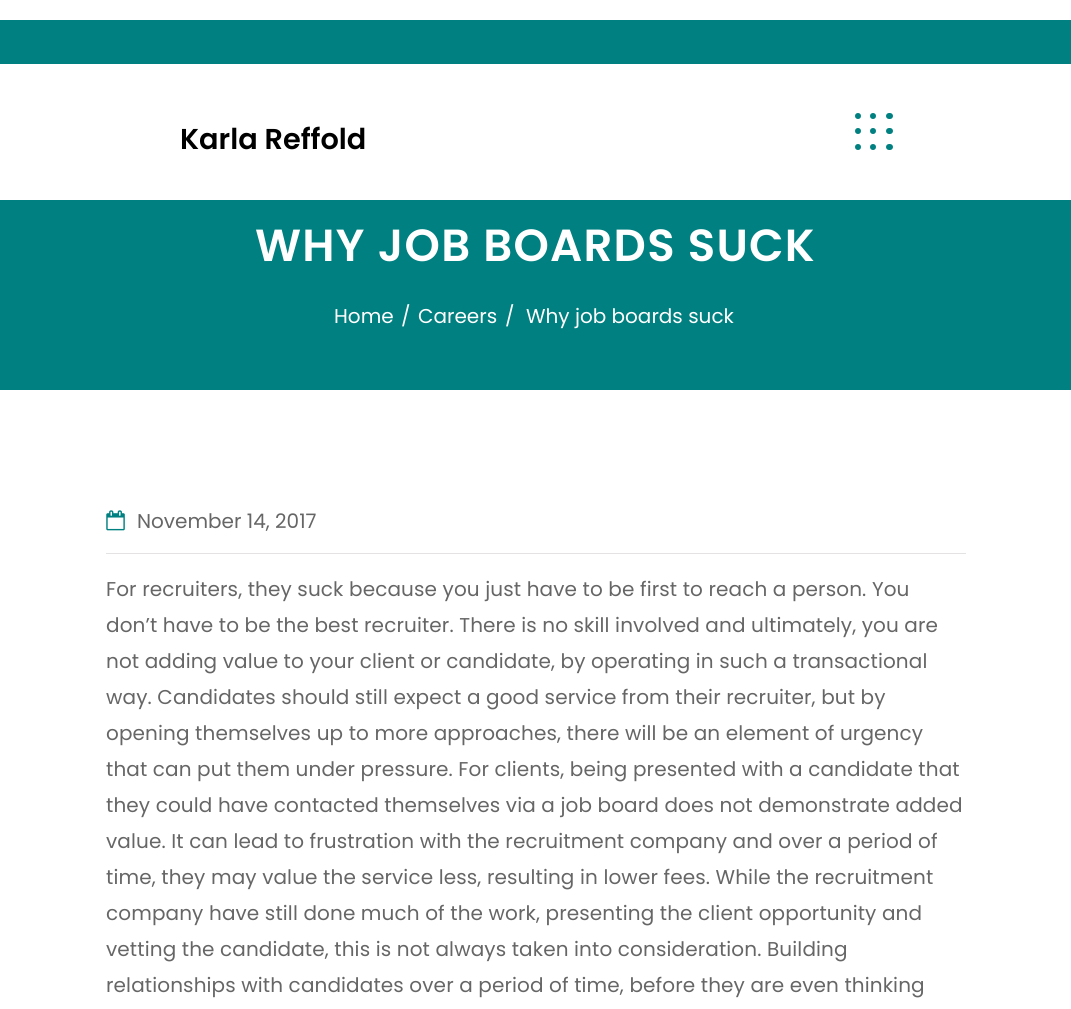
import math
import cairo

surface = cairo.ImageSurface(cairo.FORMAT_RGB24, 1071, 1009)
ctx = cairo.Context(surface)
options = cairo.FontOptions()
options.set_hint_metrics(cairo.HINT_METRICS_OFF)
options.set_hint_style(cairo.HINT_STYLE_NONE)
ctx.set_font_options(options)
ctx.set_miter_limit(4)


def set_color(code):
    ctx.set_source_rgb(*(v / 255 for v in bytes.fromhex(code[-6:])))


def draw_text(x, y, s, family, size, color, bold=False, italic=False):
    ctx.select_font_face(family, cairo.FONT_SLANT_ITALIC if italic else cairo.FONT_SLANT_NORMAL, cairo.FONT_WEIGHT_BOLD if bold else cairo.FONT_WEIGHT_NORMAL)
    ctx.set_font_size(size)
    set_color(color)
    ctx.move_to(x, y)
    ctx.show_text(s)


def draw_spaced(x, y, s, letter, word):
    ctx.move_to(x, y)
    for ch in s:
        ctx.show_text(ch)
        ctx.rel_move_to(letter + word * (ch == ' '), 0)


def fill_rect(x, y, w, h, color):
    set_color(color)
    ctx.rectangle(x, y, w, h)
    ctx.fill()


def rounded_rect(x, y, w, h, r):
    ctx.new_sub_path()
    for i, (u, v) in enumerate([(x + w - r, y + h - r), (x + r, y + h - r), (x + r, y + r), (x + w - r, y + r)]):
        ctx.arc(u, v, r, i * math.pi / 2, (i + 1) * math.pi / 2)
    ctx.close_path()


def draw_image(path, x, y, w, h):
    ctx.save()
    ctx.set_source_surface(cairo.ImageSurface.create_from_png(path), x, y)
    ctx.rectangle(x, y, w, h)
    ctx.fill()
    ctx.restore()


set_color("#ffffff")
ctx.paint()
fill_rect(0, 20, 1071, 44, "#008080")
draw_text(180, 149, "Karla Reffold", "Poppins SemiBold", 28.75, "#000000")
set_color("#008080")
ctx.new_path()
ctx.arc(858, 116, 3, 0, 2 * math.pi)
ctx.fill()
ctx.arc(873, 116, 3, 0, 2 * math.pi)
ctx.fill()
rounded_rect(886, 113, 7, 6, 3)
ctx.fill()
ctx.arc(858, 131, 3, 0, 2 * math.pi)
ctx.fill()
ctx.arc(873, 131, 3, 0, 2 * math.pi)
ctx.fill()
rounded_rect(886, 128, 7, 6, 3)
ctx.fill()
ctx.arc(858, 147, 3, 0, 2 * math.pi)
ctx.fill()
ctx.arc(873, 147, 3, 0, 2 * math.pi)
ctx.fill()
rounded_rect(886, 144, 7, 6, 3)
ctx.fill()
fill_rect(0, 200, 1071, 190, "#008080")
ctx.set_font_size(45)
set_color("#ffffff")
draw_spaced(255, 261, "WHY JOB BOARDS SUCK", 1.25, 0)
draw_text(334, 323, "Home", "Poppins", 20, "#ffffff")
draw_text(401, 323, "/", "Poppins", 20, "#ffffff")
draw_text(418, 323, "Careers", "Poppins", 20, "#ffffff")
draw_text(505, 323, "/", "Poppins", 20, "#ffffff")
draw_text(526, 323, "Why job boards suck", "Poppins", 20, "#ffffff")
fill_rect(106, 553, 860, 1, "#e4e2e2")
draw_image("assets/img1.png", 106, 510, 19, 21)
draw_text(137, 528, "November 14, 2017", "Poppins", 20, "#666666")
draw_spaced(106, 596, "For recruiters, they suck because you just have to be first to reach a person. You", 0.12, 0)
draw_spaced(106, 632, "don’t have to be the best recruiter. There is no skill involved and ultimately, you are", 0.12, 0)
draw_spaced(106, 668, "not adding value to your client or candidate, by operating in such a transactional", 0.12, 0)
draw_spaced(106, 704, "way. Candidates should still expect a good service from their recruiter, but by", 0.12, 0)
draw_spaced(106, 740, "opening themselves up to more approaches, there will be an element of urgency", 0.12, 0)
draw_spaced(106, 776, "that can put them under pressure. For clients, being presented with a candidate that", 0.12, 0)
draw_spaced(106, 812, "they could have contacted themselves via a job board does not demonstrate added", 0.12, 0)
draw_spaced(106, 848, "value. It can lead to frustration with the recruitment company and over a period of", 0.12, 0)
draw_spaced(106, 884, "time, they may value the service less, resulting in lower fees. While the recruitment", 0.12, 0)
draw_spaced(106, 920, "company have still done much of the work, presenting the client opportunity and", 0.12, 0)
draw_spaced(106, 956, "vetting the candidate, this is not always taken into consideration. Building", 0.12, 0)
draw_spaced(106, 992, "relationships with candidates over a period of time, before they are even thinking", 0.12, 0)
surface.write_to_png("output.png")
